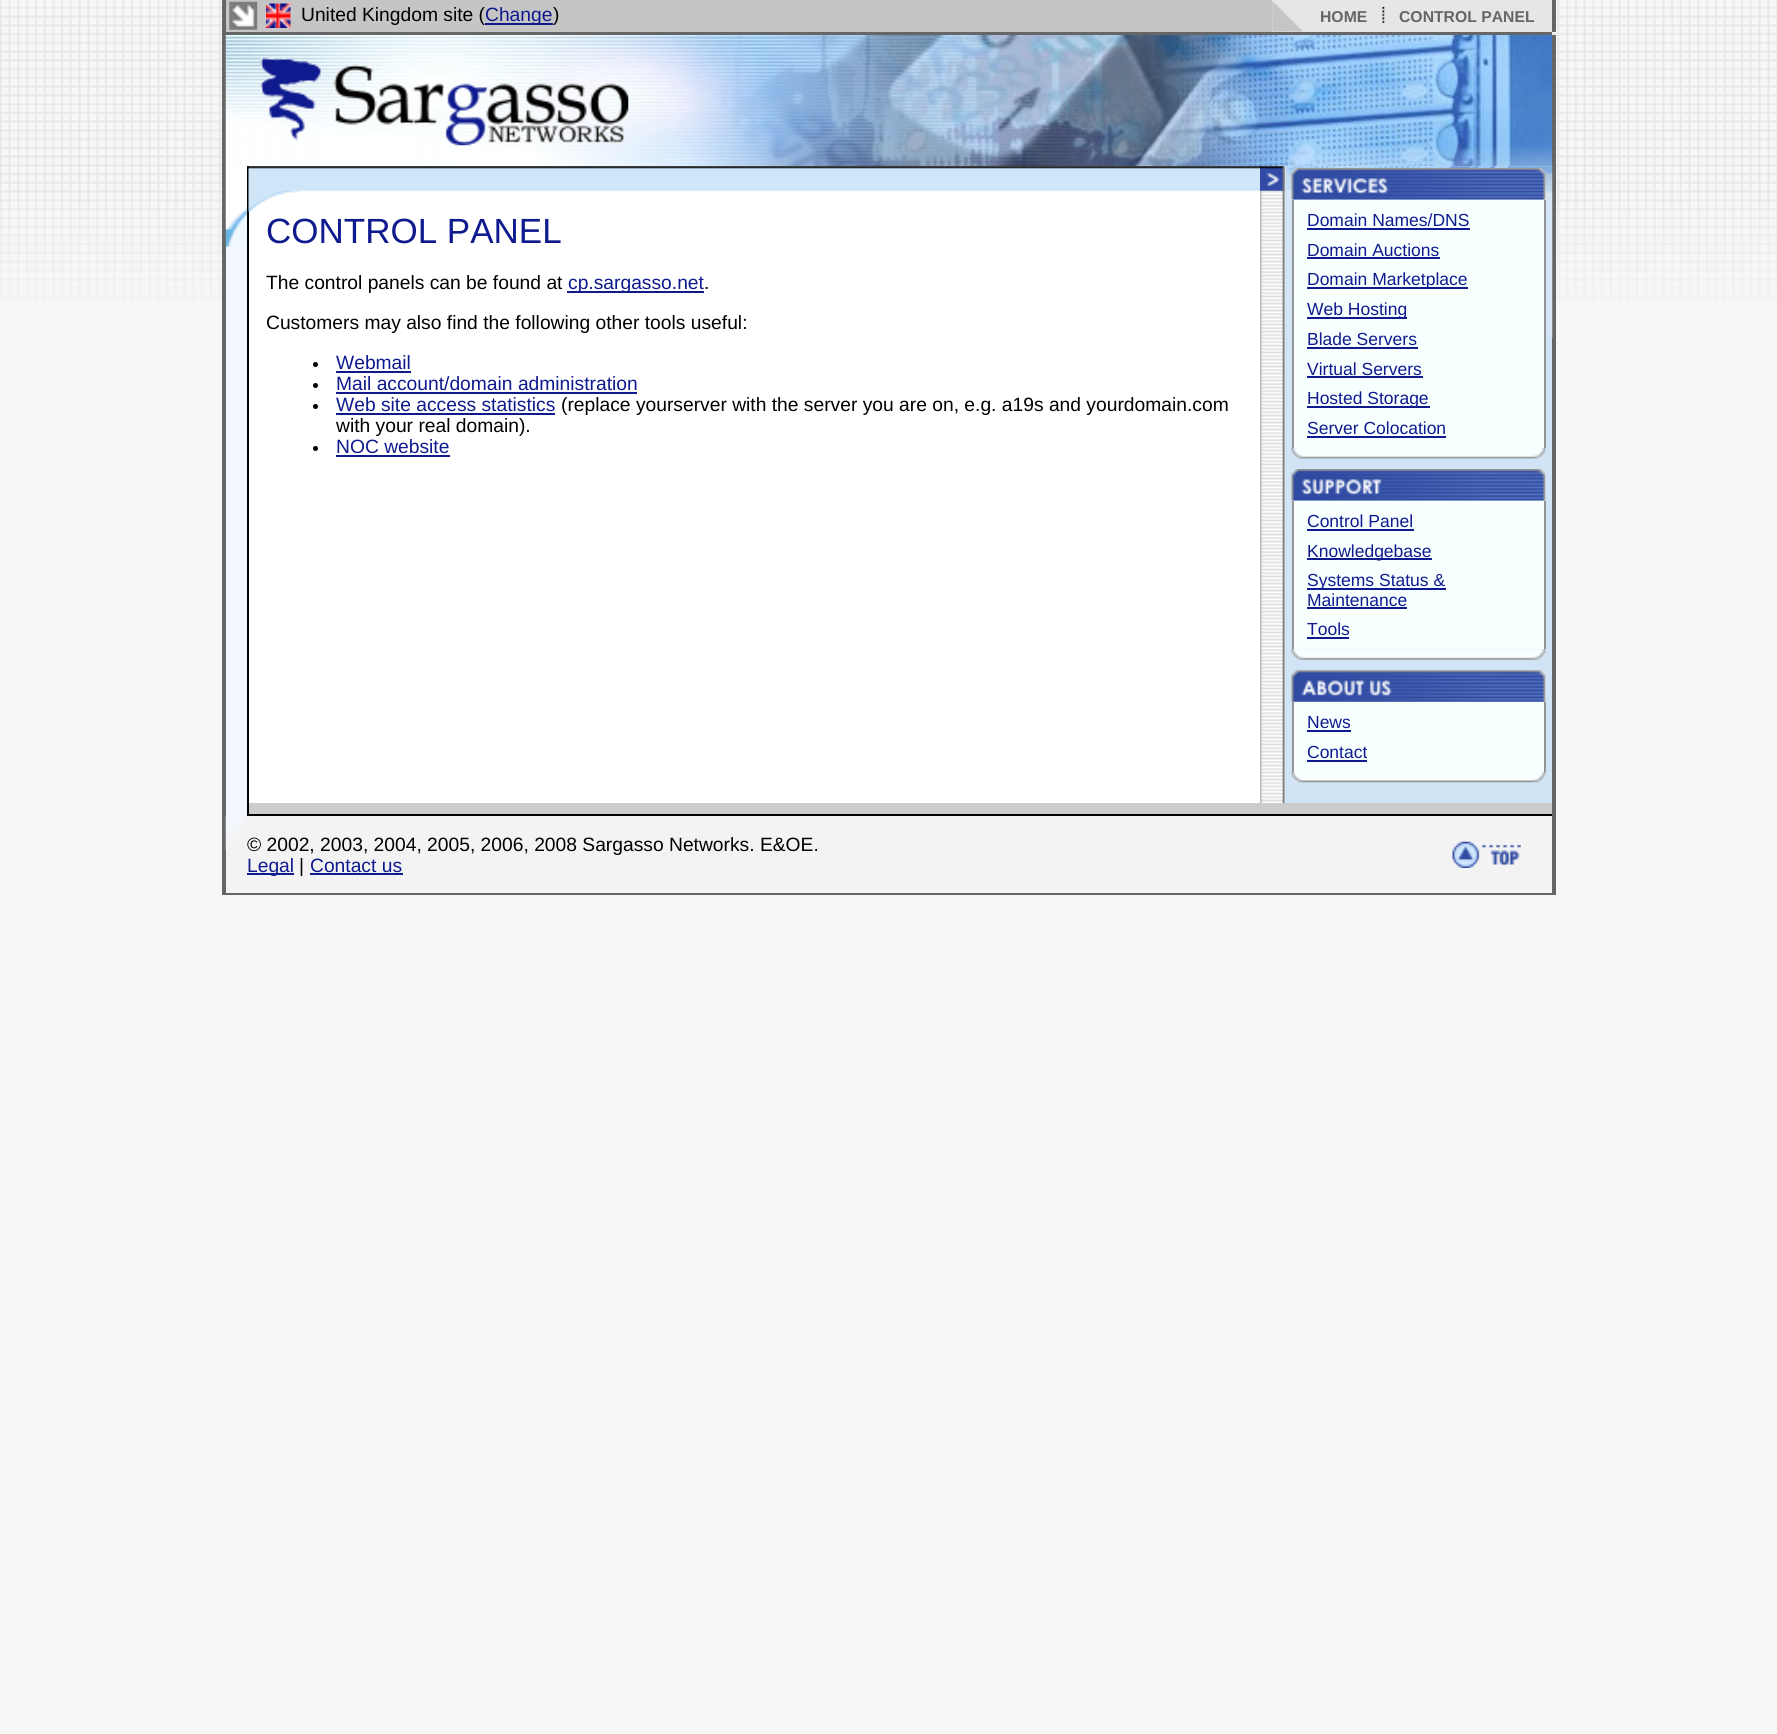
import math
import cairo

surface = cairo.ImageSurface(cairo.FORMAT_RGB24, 1777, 1734)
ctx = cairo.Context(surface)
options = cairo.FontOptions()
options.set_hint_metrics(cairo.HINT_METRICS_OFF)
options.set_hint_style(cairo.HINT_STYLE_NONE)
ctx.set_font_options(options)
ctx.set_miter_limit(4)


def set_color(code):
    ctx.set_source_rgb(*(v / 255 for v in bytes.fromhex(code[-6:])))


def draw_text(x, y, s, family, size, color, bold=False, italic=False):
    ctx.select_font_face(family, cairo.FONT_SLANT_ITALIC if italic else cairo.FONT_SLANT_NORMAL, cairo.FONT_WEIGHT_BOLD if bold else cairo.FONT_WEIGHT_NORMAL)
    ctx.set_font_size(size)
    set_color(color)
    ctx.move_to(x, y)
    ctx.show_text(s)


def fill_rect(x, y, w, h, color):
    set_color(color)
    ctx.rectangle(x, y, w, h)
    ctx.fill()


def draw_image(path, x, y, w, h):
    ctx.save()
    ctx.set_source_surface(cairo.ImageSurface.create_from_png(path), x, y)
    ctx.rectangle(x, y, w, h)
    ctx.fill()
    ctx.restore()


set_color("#f7f7f7")
ctx.paint()
draw_image("assets/img1.png", 0, 0, 1777, 302)
fill_rect(222, 0, 4, 32, "#666666")
fill_rect(226, 0, 1046, 32, "#c5c5c5")
draw_image("assets/img2.png", 229, 1, 29, 29)
fill_rect(1272, 0, 280, 32, "#e6e6e6")
draw_image("assets/img3.png", 1272, 1, 30, 31)
fill_rect(1552, 0, 4, 32, "#666666")
draw_image("assets/img4.png", 266, 3, 25, 25)
draw_text(301, 21, "United Kingdom site (", "Liberation Sans", 19.25, "#000000")
fill_rect(485, 23, 68, 2, "#0e1a8e")
draw_text(485, 21, "Change", "Liberation Sans", 19.25, "#0e1a8e")
draw_text(553, 21, ")", "Liberation Sans", 19.25, "#000000")
draw_text(1320, 22, "HOME", "Liberation Sans", 15.75, "#666666", bold=True)
draw_image("assets/img5.png", 1382, 7, 3, 16)
draw_text(1399, 22, "CONTROL PANEL", "Liberation Sans", 15.75, "#666666", bold=True)
fill_rect(222, 32, 1330, 3, "#666666")
fill_rect(222, 35, 4, 858, "#666666")
draw_image("assets/img6.png", 225, 35, 1327, 132)
draw_image("assets/img7.png", 260, 57, 369, 89)
fill_rect(1552, 35, 4, 858, "#666666")
fill_rect(226, 166, 21, 650, "#f2f7ff")
draw_image("assets/img8.png", 225, 166, 22, 81)
fill_rect(247, 166, 2, 648, "#000000")
fill_rect(249, 166, 1011, 637, "#ffffff")
draw_image("assets/img9.png", 248, 166, 1012, 46)
draw_text(266, 243, "CONTROL PANEL", "Liberation Sans", 35, "#0e1a8e")
draw_text(266, 289, "The control panels can be found at", "Liberation Sans", 19.25, "#000000")
fill_rect(567, 291, 137, 2, "#0e1a8e")
draw_text(568, 289, "cp.sargasso.net", "Liberation Sans", 19.25, "#0e1a8e")
draw_text(704, 289, ".", "Liberation Sans", 19.25, "#000000")
draw_text(266, 329, "Customers may also find the following other tools useful:", "Liberation Sans", 19.25, "#000000")
ctx.new_path()
ctx.arc(315.5, 364.5, 2.5, 0, 2 * math.pi)
ctx.fill()
draw_text(336, 369, "Webmail", "Liberation Sans", 19.25, "#0e1a8e")
fill_rect(336, 371, 75, 2, "#0e1a8e")
set_color("#000000")
ctx.new_path()
ctx.arc(315.5, 385.5, 2.5, 0, 2 * math.pi)
ctx.fill()
draw_text(336, 390, "Mail account/domain administration", "Liberation Sans", 19.25, "#0e1a8e")
fill_rect(336, 392, 301, 2, "#0e1a8e")
set_color("#000000")
ctx.new_path()
ctx.arc(315.5, 406.5, 2.5, 0, 2 * math.pi)
ctx.fill()
draw_text(336, 411, "Web site access statistics", "Liberation Sans", 19.25, "#0e1a8e")
fill_rect(336, 413, 219, 2, "#0e1a8e")
draw_text(561, 411, "(replace yourserver with the server you are on, e.g. a19s and yourdomain.com", "Liberation Sans", 19.25, "#000000")
draw_text(336, 432, "with your real domain).", "Liberation Sans", 19.25, "#000000")
ctx.new_path()
ctx.arc(315.5, 448.5, 2.5, 0, 2 * math.pi)
ctx.fill()
draw_text(336, 453, "NOC website", "Liberation Sans", 19.25, "#0e1a8e")
fill_rect(336, 455, 114, 2, "#0e1a8e")
fill_rect(1260, 166, 25, 637, "#dedede")
draw_image("assets/img10.png", 1260, 166, 25, 637)
draw_image("assets/img11.png", 1260, 166, 25, 25)
fill_rect(1285, 166, 267, 637, "#d1e4f6")
draw_image("assets/img12.png", 1286, 166, 267, 172)
draw_image("assets/img13.png", 1291, 168, 255, 32)
fill_rect(1294, 200, 250, 248, "#f7ffff")
fill_rect(1544, 200, 2, 248, "#949494")
fill_rect(1292, 200, 2, 248, "#949494")
draw_text(1307, 226, "Domain Names/DNS", "Liberation Sans", 17.5, "#0e1a8e")
fill_rect(1307, 228, 163, 2, "#0e1a8e")
draw_text(1307, 256, "Domain Auctions", "Liberation Sans", 17.5, "#0e1a8e")
fill_rect(1307, 257, 133, 2, "#0e1a8e")
fill_rect(1307, 287, 161, 2, "#0e1a8e")
draw_text(1307, 285, "Domain Marketplace", "Liberation Sans", 17.5, "#0e1a8e")
fill_rect(1307, 317, 100, 2, "#0e1a8e")
draw_text(1307, 315, "Web Hosting", "Liberation Sans", 17.5, "#0e1a8e")
draw_text(1307, 345, "Blade Servers", "Liberation Sans", 17.5, "#0e1a8e")
fill_rect(1307, 347, 111, 2, "#0e1a8e")
draw_text(1307, 375, "Virtual Servers", "Liberation Sans", 17.5, "#0e1a8e")
fill_rect(1307, 376, 116, 2, "#0e1a8e")
fill_rect(1307, 406, 123, 2, "#0e1a8e")
draw_text(1307, 404, "Hosted Storage", "Liberation Sans", 17.5, "#0e1a8e")
draw_text(1307, 434, "Server Colocation", "Liberation Sans", 17.5, "#0e1a8e")
fill_rect(1307, 436, 139, 2, "#0e1a8e")
draw_image("assets/img14.png", 1291, 448, 255, 11)
draw_image("assets/img15.png", 1291, 469, 255, 32)
fill_rect(1294, 501, 250, 148, "#f7ffff")
fill_rect(1544, 501, 2, 148, "#949494")
fill_rect(1292, 501, 2, 148, "#949494")
draw_text(1307, 527, "Control Panel", "Liberation Sans", 17.5, "#0e1a8e")
fill_rect(1307, 529, 107, 2, "#0e1a8e")
fill_rect(1307, 558, 125, 2, "#0e1a8e")
draw_text(1307, 557, "Knowledgebase", "Liberation Sans", 17.5, "#0e1a8e")
fill_rect(1307, 588, 139, 2, "#0e1a8e")
draw_text(1307, 586, "Systems Status &", "Liberation Sans", 17.5, "#0e1a8e")
draw_text(1307, 606, "Maintenance", "Liberation Sans", 17.5, "#0e1a8e")
fill_rect(1307, 607, 100, 2, "#0e1a8e")
draw_text(1307, 635, "Tools", "Liberation Sans", 17.5, "#0e1a8e")
fill_rect(1307, 637, 42, 2, "#0e1a8e")
draw_image("assets/img16.png", 1291, 649, 255, 11)
draw_image("assets/img17.png", 1291, 670, 255, 32)
fill_rect(1294, 702, 250, 70, "#f7ffff")
fill_rect(1544, 702, 2, 70, "#949494")
fill_rect(1292, 702, 2, 70, "#949494")
draw_text(1307, 728, "News", "Liberation Sans", 17.5, "#0e1a8e")
fill_rect(1307, 730, 44, 2, "#0e1a8e")
draw_text(1307, 758, "Contact", "Liberation Sans", 17.5, "#0e1a8e")
fill_rect(1307, 760, 60, 2, "#0e1a8e")
draw_image("assets/img18.png", 1291, 771, 255, 12)
fill_rect(249, 803, 1303, 11, "#cccccc")
fill_rect(247, 814, 1305, 2, "#000000")
fill_rect(226, 816, 1326, 77, "#f3f3f3")
draw_image("assets/img19.png", 225, 815, 21, 36)
draw_text(247, 851, "© 2002, 2003, 2004, 2005, 2006, 2008 Sargasso Networks. E&OE.", "Liberation Sans", 19.25, "#000000")
fill_rect(247, 873, 47, 2, "#0e1a8e")
draw_text(247, 872, "Legal", "Liberation Sans", 19.25, "#0e1a8e")
draw_text(299, 872, "|", "Liberation Sans", 19.25, "#000000")
draw_text(310, 872, "Contact us", "Liberation Sans", 19.25, "#0e1a8e")
fill_rect(310, 873, 93, 2, "#0e1a8e")
draw_image("assets/img20.png", 1452, 841, 69, 27)
fill_rect(222, 893, 1334, 2, "#666666")
surface.write_to_png("output.png")
